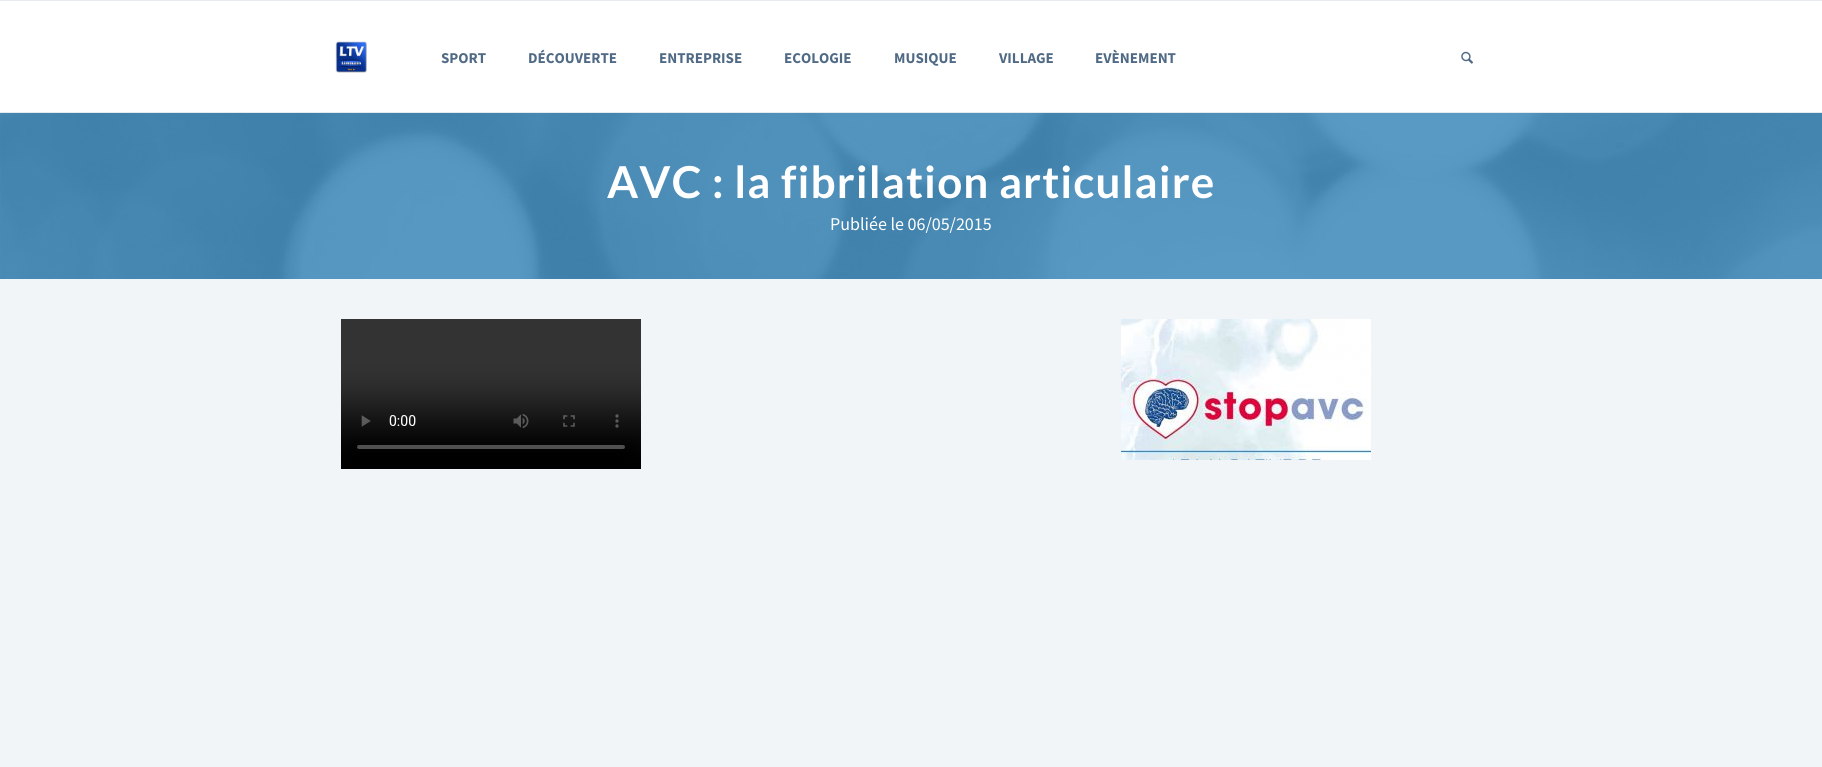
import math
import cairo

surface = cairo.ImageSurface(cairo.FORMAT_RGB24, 1822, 767)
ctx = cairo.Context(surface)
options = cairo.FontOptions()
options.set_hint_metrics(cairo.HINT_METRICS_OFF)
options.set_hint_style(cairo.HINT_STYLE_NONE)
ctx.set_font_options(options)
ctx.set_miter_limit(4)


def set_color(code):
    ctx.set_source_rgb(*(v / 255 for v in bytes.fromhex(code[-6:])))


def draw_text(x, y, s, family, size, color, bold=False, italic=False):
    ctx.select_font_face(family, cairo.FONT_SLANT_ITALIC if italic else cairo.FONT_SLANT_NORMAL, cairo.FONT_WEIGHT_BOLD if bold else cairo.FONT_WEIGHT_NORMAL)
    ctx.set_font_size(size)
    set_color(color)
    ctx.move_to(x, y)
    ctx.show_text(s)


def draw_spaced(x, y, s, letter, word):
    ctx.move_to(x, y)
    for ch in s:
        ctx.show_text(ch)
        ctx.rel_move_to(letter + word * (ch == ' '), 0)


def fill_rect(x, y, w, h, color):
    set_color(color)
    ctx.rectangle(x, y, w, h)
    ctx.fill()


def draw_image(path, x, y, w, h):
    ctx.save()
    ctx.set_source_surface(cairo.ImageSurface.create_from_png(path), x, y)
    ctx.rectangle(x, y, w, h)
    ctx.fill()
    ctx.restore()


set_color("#f2f5f7")
ctx.paint()
fill_rect(0, 1, 1822, 111, "#ffffff")
fill_rect(0, 0, 1822, 1, "#e6e9ed")
fill_rect(0, 112, 1822, 1, "#e6e9ed")
draw_image("assets/img1.png", 335, 41, 32, 32)
draw_text(441, 63, "SPORT", "Source Sans Pro", 15, "#506a85", bold=True)
draw_text(528, 63, "DÉCOUVERTE", "Source Sans Pro", 15, "#506a85", bold=True)
draw_text(659, 63, "ENTREPRISE", "Source Sans Pro", 15, "#506a85", bold=True)
draw_text(784, 63, "ECOLOGIE", "Source Sans Pro", 15, "#506a85", bold=True)
draw_text(894, 63, "MUSIQUE", "Source Sans Pro", 15, "#506a85", bold=True)
draw_text(999, 63, "VILLAGE", "Source Sans Pro", 15, "#506a85", bold=True)
draw_text(1095, 63, "EVÈNEMENT", "Source Sans Pro", 15, "#506a85", bold=True)
draw_image("assets/img2.png", 1461, 51, 12, 13)
draw_image("assets/img3.png", 0, 113, 1822, 166)
ctx.select_font_face("Lato", cairo.FONT_SLANT_NORMAL, cairo.FONT_WEIGHT_BOLD)
ctx.set_font_size(44)
set_color("#ffffff")
draw_spaced(607, 198, "AVC : la fibrilation articulaire", 1.1, 0)
draw_text(830, 230, "Publiée le 06/05/2015", "Source Sans Pro", 18, "#ffffff")
draw_image("assets/img4.png", 341, 319, 300, 150)
draw_image("assets/img5.png", 1121, 319, 250, 141)
surface.write_to_png("output.png")
